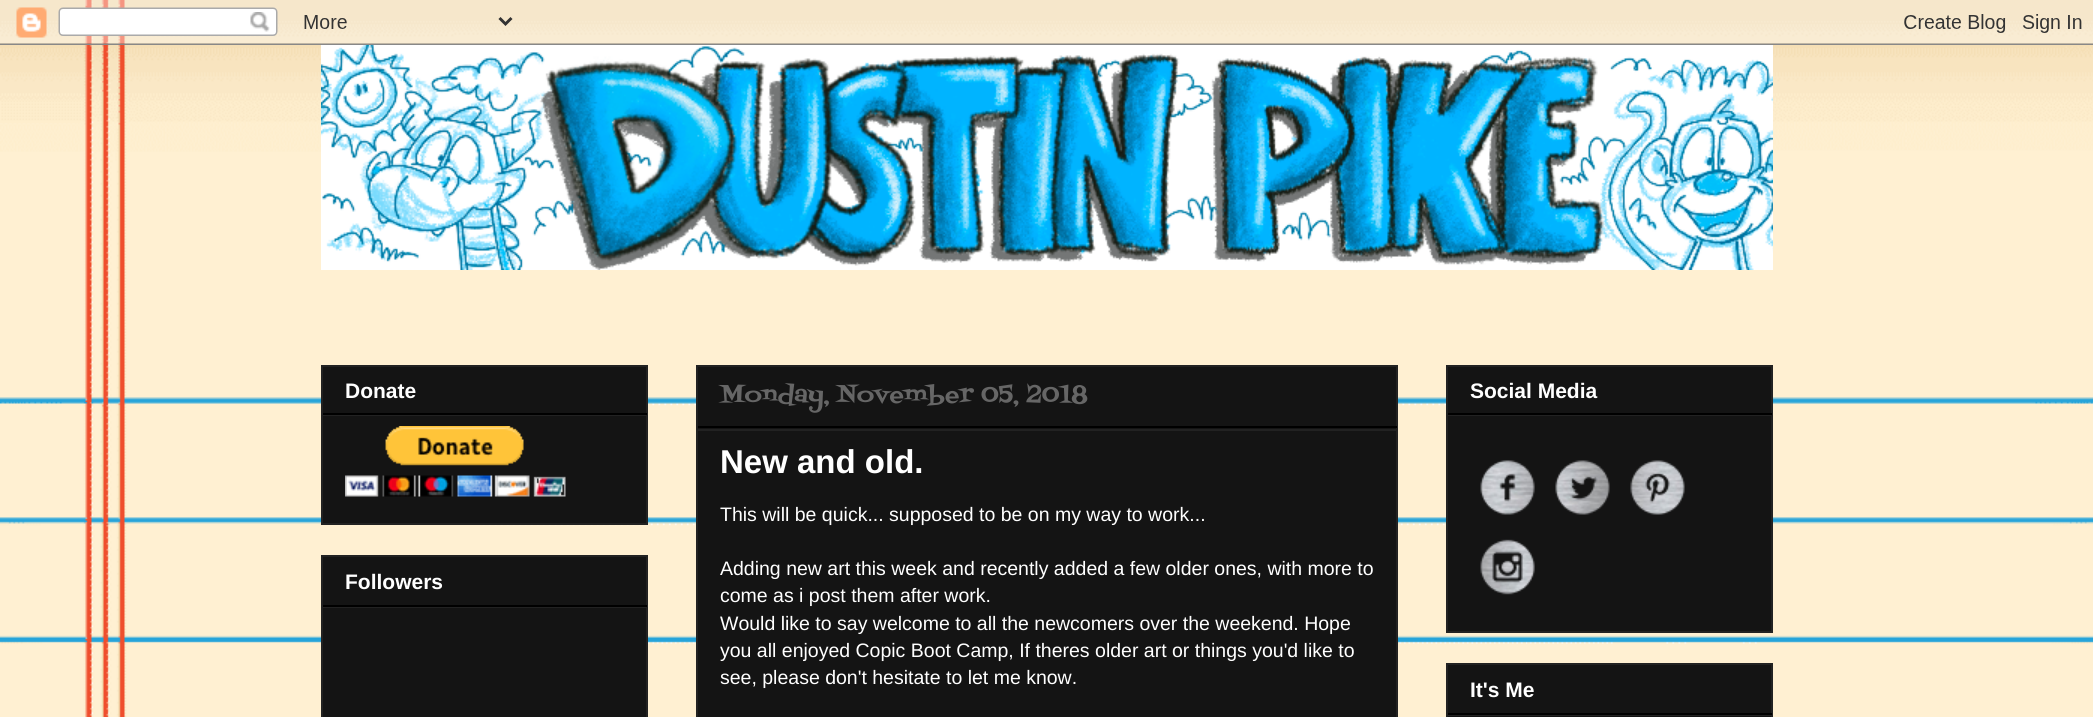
import math
import cairo

surface = cairo.ImageSurface(cairo.FORMAT_RGB24, 2093, 717)
ctx = cairo.Context(surface)
options = cairo.FontOptions()
options.set_hint_metrics(cairo.HINT_METRICS_OFF)
options.set_hint_style(cairo.HINT_STYLE_NONE)
ctx.set_font_options(options)
ctx.set_miter_limit(4)


def set_color(code):
    ctx.set_source_rgb(*(v / 255 for v in bytes.fromhex(code[-6:])))


def draw_text(x, y, s, family, size, color, bold=False, italic=False):
    ctx.select_font_face(family, cairo.FONT_SLANT_ITALIC if italic else cairo.FONT_SLANT_NORMAL, cairo.FONT_WEIGHT_BOLD if bold else cairo.FONT_WEIGHT_NORMAL)
    ctx.set_font_size(size)
    set_color(color)
    ctx.move_to(x, y)
    ctx.show_text(s)


def fill_rect(x, y, w, h, color):
    set_color(color)
    ctx.rectangle(x, y, w, h)
    ctx.fill()


def draw_image(path, x, y, w, h):
    ctx.save()
    ctx.set_source_surface(cairo.ImageSurface.create_from_png(path), x, y)
    ctx.rectangle(x, y, w, h)
    ctx.fill()
    ctx.restore()


set_color("#ffffff")
ctx.paint()
draw_image("assets/img1.png", 0, 0, 2093, 717)
draw_image("assets/img2.png", 0, 0, 2093, 45)
draw_image("assets/img3.png", 321, 45, 1452, 225)
set_color("#141414")
ctx.rectangle(322, 366, 325, 158)
ctx.fill_preserve()
set_color("#222222")
ctx.stroke()
fill_rect(323, 413, 324, 2, "#000000")
draw_text(345, 398, "Donate", "Liberation Sans", 21, "#ffffff", bold=True)
fill_rect(323, 415, 324, 1, "#222222")
draw_image("assets/img4.png", 345, 426, 221, 71)
set_color("#141414")
ctx.rectangle(322, 556, 325, 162)
ctx.fill_preserve()
set_color("#222222")
ctx.stroke()
fill_rect(323, 605, 324, 2, "#000000")
draw_text(345, 589, "Followers", "Liberation Sans", 21, "#ffffff", bold=True)
fill_rect(323, 607, 324, 1, "#222222")
set_color("#141414")
ctx.rectangle(697, 366, 700, 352)
ctx.fill_preserve()
set_color("#222222")
ctx.stroke()
fill_rect(698, 426, 699, 2, "#000000")
draw_text(720, 402, "Monday, November 05, 2018", "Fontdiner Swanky", 24, "#666666")
fill_rect(698, 429, 699, 2, "#222222")
draw_text(720, 473, "New and old.", "Liberation Sans", 33, "#ffffff", bold=True)
draw_text(720, 521, "This will be quick... supposed to be on my way to work...", "Liberation Sans", 19.5, "#ffffff")
draw_text(720, 575, "Adding new art this week and recently added a few older ones, with more to", "Liberation Sans", 19.5, "#ffffff")
draw_text(720, 602, "come as i post them after work.", "Liberation Sans", 19.5, "#ffffff")
draw_text(720, 630, "Would like to say welcome to all the newcomers over the weekend. Hope", "Liberation Sans", 19.5, "#ffffff")
draw_text(720, 657, "you all enjoyed Copic Boot Camp, If theres older art or things you'd like to", "Liberation Sans", 19.5, "#ffffff")
draw_text(720, 684, "see, please don't hesitate to let me know.", "Liberation Sans", 19.5, "#ffffff")
set_color("#141414")
ctx.rectangle(1447, 366, 325, 266)
ctx.fill_preserve()
set_color("#222222")
ctx.stroke()
fill_rect(1448, 413, 324, 2, "#000000")
draw_text(1470, 398, "Social Media", "Liberation Sans", 21, "#ffffff", bold=True)
fill_rect(1448, 415, 324, 1, "#222222")
draw_image("assets/img5.png", 1480, 460, 55, 55)
draw_image("assets/img6.png", 1555, 460, 55, 55)
draw_image("assets/img7.png", 1630, 460, 55, 55)
draw_image("assets/img8.png", 1480, 539, 55, 56)
set_color("#141414")
ctx.rectangle(1447, 664, 325, 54)
ctx.fill_preserve()
set_color("#222222")
ctx.stroke()
fill_rect(1448, 713, 324, 2, "#000000")
draw_text(1470, 697, "It's Me", "Liberation Sans", 21, "#ffffff", bold=True)
fill_rect(1448, 715, 324, 1, "#222222")
surface.write_to_png("output.png")
